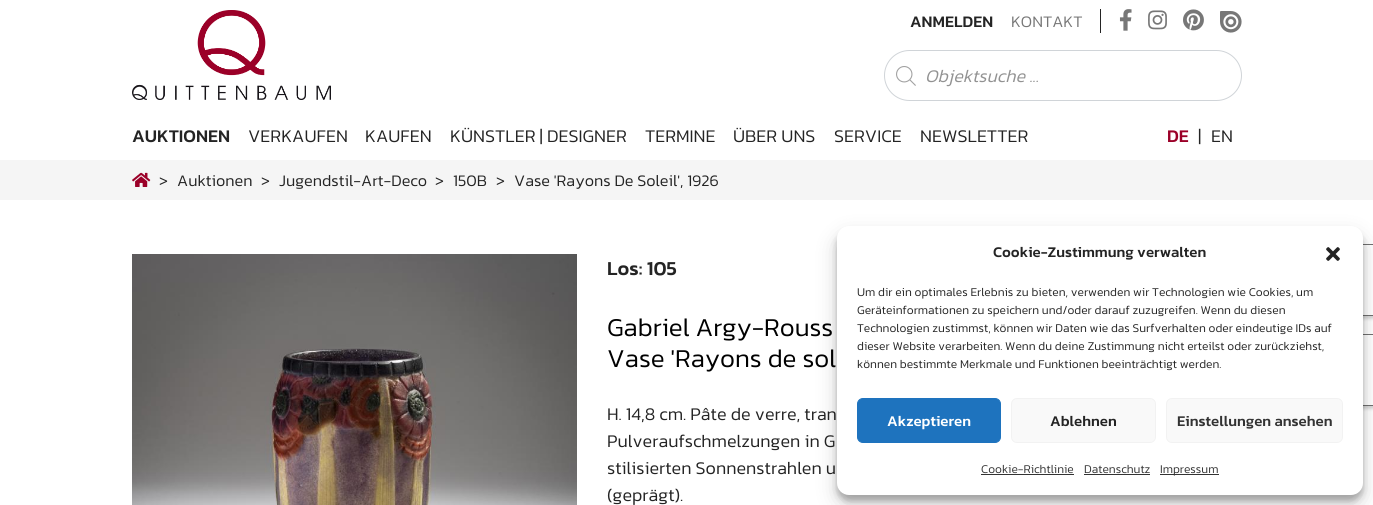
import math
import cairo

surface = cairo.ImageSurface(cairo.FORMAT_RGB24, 1373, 505)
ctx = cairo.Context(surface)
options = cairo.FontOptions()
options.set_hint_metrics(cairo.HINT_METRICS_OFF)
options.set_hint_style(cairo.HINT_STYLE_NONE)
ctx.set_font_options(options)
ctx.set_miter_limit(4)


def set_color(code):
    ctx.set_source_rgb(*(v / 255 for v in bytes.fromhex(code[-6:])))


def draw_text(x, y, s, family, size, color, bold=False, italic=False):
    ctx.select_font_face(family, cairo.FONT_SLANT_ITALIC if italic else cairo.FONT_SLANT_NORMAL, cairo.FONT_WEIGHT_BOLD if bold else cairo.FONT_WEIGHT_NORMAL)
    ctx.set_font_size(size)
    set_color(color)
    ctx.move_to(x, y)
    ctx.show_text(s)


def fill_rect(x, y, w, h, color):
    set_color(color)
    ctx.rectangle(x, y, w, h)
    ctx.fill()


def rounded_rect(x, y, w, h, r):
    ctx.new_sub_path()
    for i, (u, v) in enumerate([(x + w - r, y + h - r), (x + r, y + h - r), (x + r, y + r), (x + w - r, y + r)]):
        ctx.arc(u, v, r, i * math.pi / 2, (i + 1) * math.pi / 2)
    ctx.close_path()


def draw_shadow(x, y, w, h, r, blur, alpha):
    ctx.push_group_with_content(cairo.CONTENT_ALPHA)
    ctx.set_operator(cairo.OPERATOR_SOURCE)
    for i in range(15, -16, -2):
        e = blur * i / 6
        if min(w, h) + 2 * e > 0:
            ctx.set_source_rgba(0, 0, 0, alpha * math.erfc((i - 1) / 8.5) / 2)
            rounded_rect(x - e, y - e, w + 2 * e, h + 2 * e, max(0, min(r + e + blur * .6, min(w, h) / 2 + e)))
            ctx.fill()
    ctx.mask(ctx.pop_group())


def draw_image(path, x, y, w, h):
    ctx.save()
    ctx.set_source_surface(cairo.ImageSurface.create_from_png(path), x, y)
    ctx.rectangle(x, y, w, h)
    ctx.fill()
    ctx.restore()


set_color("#ffffff")
ctx.paint()
draw_image("assets/img1.png", 132, 10, 199, 90)
draw_text(910, 27, "ANMELDEN", "Kanit Medium", 16.25, "#242424")
draw_text(1011, 27, "KONTAKT", "Kanit Light", 16.25, "#777777")
fill_rect(1100, 9, 1, 24, "#242424")
draw_image("assets/img2.png", 1119, 9, 13, 22)
draw_image("assets/img3.png", 1148, 10, 19, 20)
draw_image("assets/img4.png", 1183, 9, 21, 22)
draw_image("assets/img5.png", 1220, 11, 22, 22)
rounded_rect(884.5, 50.5, 357, 50, 25)
set_color("#d0d4d8")
ctx.set_line_width(1)
ctx.stroke()
draw_image("assets/img6.png", 896, 66, 20, 20)
draw_text(925, 82, "Objektsuche ...", "Kanit Light", 18, "#929292", italic=True)
draw_text(132, 142, "AUKTIONEN", "Kanit Medium", 18, "#242424")
draw_text(248, 142, "VERKAUFEN", "Kanit Light", 18, "#242424")
draw_text(365, 142, "KAUFEN", "Kanit Light", 18, "#242424")
draw_text(450, 142, "KÜNSTLER | DESIGNER", "Kanit Light", 18, "#242424")
draw_text(645, 142, "TERMINE", "Kanit Light", 18, "#242424")
draw_text(733, 142, "ÜBER UNS", "Kanit Light", 18, "#242424")
draw_text(834, 142, "SERVICE", "Kanit Light", 18, "#242424")
draw_text(920, 142, "NEWSLETTER", "Kanit Light", 18, "#242424")
draw_text(1167, 142, "DE", "Kanit Medium", 18, "#9b0028")
draw_text(1198, 142, "|", "Kanit Light", 18, "#242424")
draw_text(1211, 142, "EN", "Kanit Light", 18, "#242424")
set_color("#000000")
draw_shadow(1308, 247, 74, 72, 10, 1.5, 0.16)
fill_rect(1363, 245, 10, 71, "#ffffff")
ctx.rectangle(1308.5, 244.5, 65, 71)
set_color("#707070")
ctx.stroke()
set_color("#000000")
draw_shadow(1308, 337, 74, 72, 10, 1.5, 0.16)
fill_rect(1363, 335, 10, 71, "#ffffff")
ctx.rectangle(1308.5, 334.5, 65, 71)
set_color("#707070")
ctx.stroke()
fill_rect(0, 160, 1373, 40, "#f5f5f5")
draw_image("assets/img7.png", 132, 172, 19, 15)
draw_text(159, 186, ">", "Kanit Light", 16.25, "#242424")
draw_text(177, 186, "Auktionen", "Kanit Light", 16.25, "#242424")
draw_text(261, 186, ">", "Kanit Light", 16.25, "#242424")
draw_text(279, 186, "Jugendstil-Art-Deco", "Kanit Light", 16.25, "#242424")
draw_text(435, 186, ">", "Kanit Light", 16.25, "#242424")
draw_text(453, 186, "150B", "Kanit Light", 16.25, "#242424")
draw_text(496, 186, ">", "Kanit Light", 16.25, "#242424")
draw_text(514, 186, "Vase 'Rayons De Soleil', 1926", "Kanit Light", 16.25, "#242424")
draw_image("assets/img8.png", 132, 254, 445, 251)
draw_text(607, 275, "Los: 105", "Kanit Medium", 20, "#242424")
draw_text(607, 336, "Gabriel Argy-Rouss", "Kanit Light", 26, "#000000")
draw_text(607, 367, "Vase 'Rayons de sol", "Kanit Light", 26, "#000000")
draw_text(607, 420, "H. 14,8 cm. Pâte de verre, tran", "Kanit Light", 18, "#242424")
draw_text(607, 447, "Pulveraufschmelzungen in G", "Kanit Light", 18, "#242424")
draw_text(607, 474, "stilisierten Sonnenstrahlen u", "Kanit Light", 18, "#242424")
draw_text(607, 501, "(geprägt).", "Kanit Light", 18, "#242424")
set_color("#000000")
draw_shadow(837, 232, 526, 269, 12, 3, 0.23)
draw_shadow(837, 236, 526, 269, 12, 10, 0.19)
set_color("#ffffff")
rounded_rect(837, 226, 526, 269, 12)
ctx.fill()
draw_text(993, 257, "Cookie-Zustimmung verwalten", "Kanit Medium", 15, "#242424")
draw_image("assets/img9.png", 1326, 247, 14, 14)
draw_text(857, 296, "Um dir ein optimales Erlebnis zu bieten, verwenden wir Technologien wie Cookies, um", "Kanit Light", 12, "#242424")
draw_text(857, 314, "Geräteinformationen zu speichern und/oder darauf zuzugreifen. Wenn du diesen", "Kanit Light", 12, "#242424")
draw_text(857, 332, "Technologien zustimmst, können wir Daten wie das Surfverhalten oder eindeutige IDs auf", "Kanit Light", 12, "#242424")
draw_text(857, 350, "dieser Website verarbeiten. Wenn du deine Zustimmung nicht erteilst oder zurückziehst,", "Kanit Light", 12, "#242424")
draw_text(857, 368, "können bestimmte Merkmale und Funktionen beeinträchtigt werden.", "Kanit Light", 12, "#242424")
set_color("#1e73be")
rounded_rect(857.5, 398.5, 143, 44, 5.5)
ctx.fill_preserve()
ctx.stroke()
draw_text(887, 426, "Akzeptieren", "Kanit Medium", 15, "#ffffff")
set_color("#f9f9f9")
rounded_rect(1011.5, 398.5, 144, 44, 5.5)
ctx.fill_preserve()
set_color("#f2f2f2")
ctx.stroke()
draw_text(1050, 426, "Ablehnen", "Kanit Medium", 15, "#242424")
set_color("#f9f9f9")
rounded_rect(1166.5, 398.5, 176, 44, 5.5)
ctx.fill_preserve()
set_color("#f2f2f2")
ctx.stroke()
draw_text(1177, 426, "Einstellungen ansehen", "Kanit Medium", 15, "#333333")
draw_text(981, 473, "Cookie-Richtlinie", "Kanit Light", 12, "#333333")
fill_rect(981, 474, 93, 1, "#333333")
draw_text(1084, 473, "Datenschutz", "Kanit Light", 12, "#333333")
fill_rect(1084, 474, 66, 1, "#333333")
fill_rect(1160, 474, 59, 1, "#333333")
draw_text(1160, 473, "Impressum", "Kanit Light", 12, "#333333")
surface.write_to_png("output.png")
